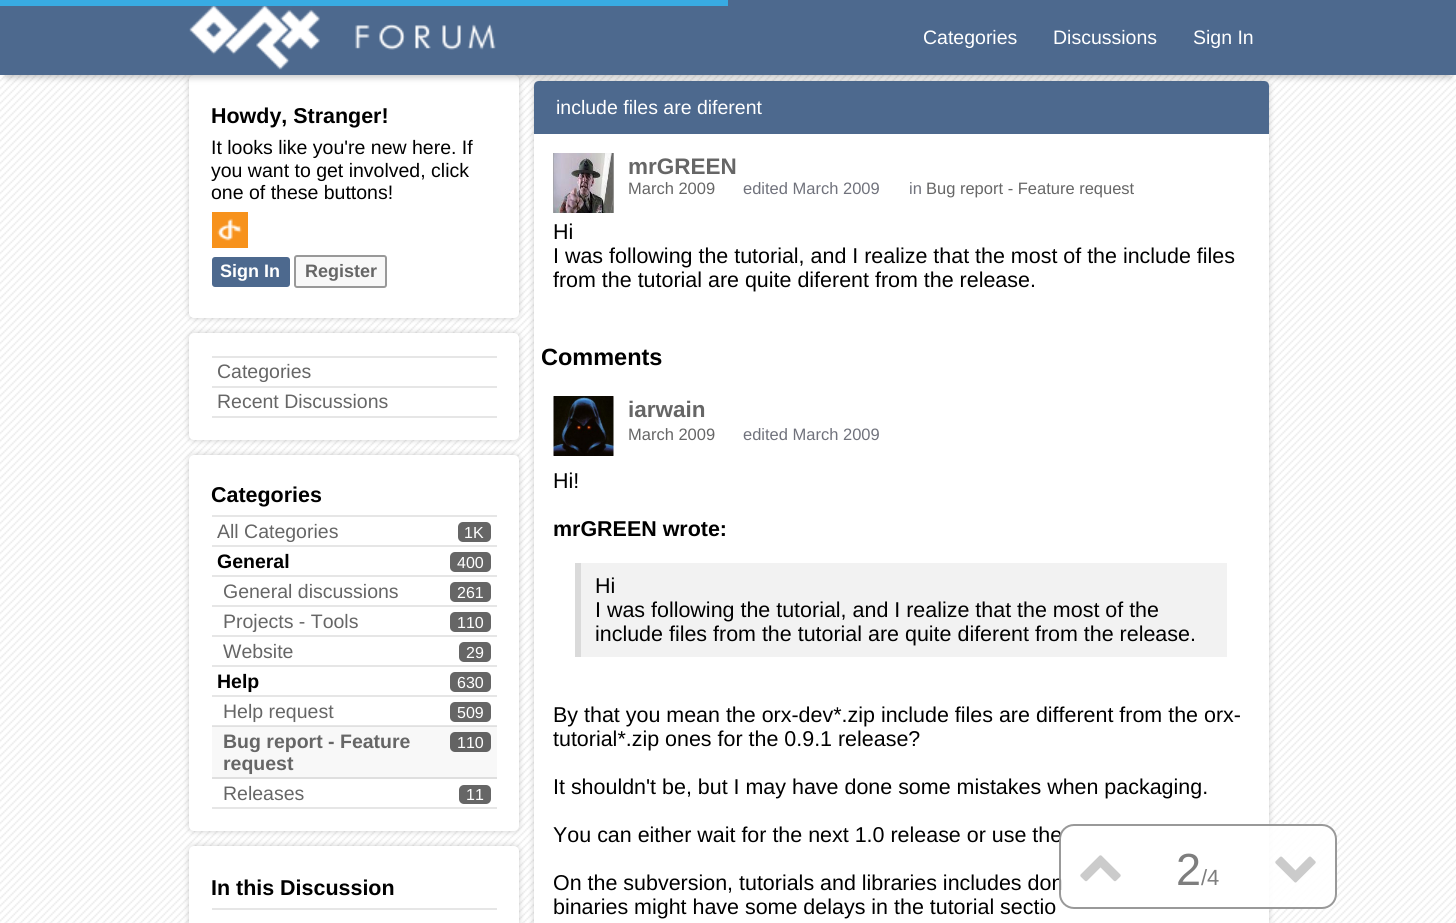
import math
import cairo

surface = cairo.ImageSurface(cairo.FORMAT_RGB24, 1456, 923)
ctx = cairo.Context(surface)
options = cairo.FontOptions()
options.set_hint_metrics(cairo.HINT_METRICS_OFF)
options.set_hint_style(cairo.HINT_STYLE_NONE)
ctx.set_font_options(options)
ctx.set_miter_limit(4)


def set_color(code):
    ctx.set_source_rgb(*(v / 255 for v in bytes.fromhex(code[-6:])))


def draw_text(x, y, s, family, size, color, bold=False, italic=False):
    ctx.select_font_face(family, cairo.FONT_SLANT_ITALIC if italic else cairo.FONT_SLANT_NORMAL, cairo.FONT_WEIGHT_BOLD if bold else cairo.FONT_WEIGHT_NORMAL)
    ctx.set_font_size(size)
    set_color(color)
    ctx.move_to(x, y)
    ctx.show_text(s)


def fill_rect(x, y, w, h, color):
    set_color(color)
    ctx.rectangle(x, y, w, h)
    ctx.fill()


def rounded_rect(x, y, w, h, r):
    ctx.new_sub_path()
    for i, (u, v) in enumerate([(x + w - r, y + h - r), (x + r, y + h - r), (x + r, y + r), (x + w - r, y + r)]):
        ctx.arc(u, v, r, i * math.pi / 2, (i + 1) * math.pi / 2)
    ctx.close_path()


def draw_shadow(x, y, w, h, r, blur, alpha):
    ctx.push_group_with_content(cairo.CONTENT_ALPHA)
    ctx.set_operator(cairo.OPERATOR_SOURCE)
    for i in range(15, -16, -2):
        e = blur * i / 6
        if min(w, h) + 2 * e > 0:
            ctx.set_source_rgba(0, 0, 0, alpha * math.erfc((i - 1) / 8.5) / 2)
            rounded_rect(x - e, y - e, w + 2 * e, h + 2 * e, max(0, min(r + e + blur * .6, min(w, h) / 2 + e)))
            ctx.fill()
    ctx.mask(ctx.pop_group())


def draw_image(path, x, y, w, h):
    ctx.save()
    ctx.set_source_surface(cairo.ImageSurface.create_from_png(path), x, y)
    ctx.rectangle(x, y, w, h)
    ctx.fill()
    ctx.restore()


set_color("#ffffff")
ctx.paint()
draw_image("assets/img1.png", 0, 75, 1456, 848)
set_color("#000000")
draw_shadow(189, 75, 330, 243, 5, 3, 0.2)
set_color("#ffffff")
rounded_rect(189, 75, 330, 243, 5)
ctx.fill()
set_color("#000000")
draw_shadow(534, 81, 735, 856, 5, 3, 0.2)
set_color("#ffffff")
rounded_rect(534, 81, 735, 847, 5)
ctx.fill()
set_color("#4d698e")
ctx.new_path()
ctx.move_to(539, 81)
ctx.line_to(1264, 81)
ctx.curve_to(1267, 81, 1269, 83, 1269, 86)
ctx.line_to(1269, 134)
ctx.line_to(534, 134)
ctx.line_to(534, 86)
ctx.curve_to(534, 83, 536, 81, 539, 81)
ctx.close_path()
ctx.fill()
set_color("#000000")
draw_shadow(6, 15, 1445, 63, 0, 3, 0.2)
fill_rect(0, 0, 1456, 75, "#4d698e")
fill_rect(0, 0, 728, 6, "#38abe3")
draw_image("assets/img2.png", 189, 6, 307, 64)
draw_text(923, 44, "Categories", "Liberation Sans", 19.5, "#ffffff")
draw_text(1053, 44, "Discussions", "Liberation Sans", 19.5, "#ffffff")
draw_text(1193, 44, "Sign In", "Liberation Sans", 19.5, "#ffffff")
draw_text(211, 123, "Howdy, Stranger!", "Liberation Sans", 21.45, "#000000", bold=True)
draw_text(211, 154, "It looks like you're new here. If", "Liberation Sans", 19.5, "#000000")
draw_text(211, 177, "you want to get involved, click", "Liberation Sans", 19.5, "#000000")
draw_text(211, 199, "one of these buttons!", "Liberation Sans", 19.5, "#000000")
fill_rect(212, 212, 36, 36, "#f7921c")
draw_image("assets/img3.png", 217, 218, 25, 23)
set_color("#4d698e")
rounded_rect(212, 257, 78, 30, 3)
ctx.fill()
draw_text(220, 277, "Sign In", "Liberation Sans", 18, "#ffffff", bold=True)
set_color("#f8f8f8")
rounded_rect(295, 256, 91, 31, 2)
ctx.fill_preserve()
set_color("#999999")
ctx.stroke()
draw_text(305, 277, "Register", "Liberation Sans", 18, "#666666", bold=True)
set_color("#000000")
draw_shadow(189, 333, 330, 107, 5, 3, 0.2)
set_color("#ffffff")
rounded_rect(189, 333, 330, 107, 5)
ctx.fill()
fill_rect(212, 356, 285, 2, "#e6e6e6")
fill_rect(212, 386, 285, 2, "#e6e6e6")
draw_text(217, 378, "Categories", "Liberation Sans", 19.5, "#666666")
fill_rect(212, 416, 285, 2, "#e6e6e6")
draw_text(217, 408, "Recent Discussions", "Liberation Sans", 19.5, "#666666")
set_color("#000000")
draw_shadow(189, 455, 330, 376, 5, 3, 0.2)
set_color("#ffffff")
rounded_rect(189, 455, 330, 376, 5)
ctx.fill()
draw_text(211, 502, "Categories", "Liberation Sans", 21.45, "#000000", bold=True)
fill_rect(212, 515, 285, 2, "#e6e6e6")
fill_rect(212, 545, 285, 2, "#e6e6e6")
draw_text(217, 538, "All Categories", "Liberation Sans", 19.5, "#666666")
rounded_rect(458, 522, 33, 20, 5)
ctx.fill()
draw_text(464, 538, "1K", "Liberation Sans", 16, "#ffffff")
fill_rect(212, 575, 285, 2, "#e6e6e6")
draw_text(217, 568, "General", "Liberation Sans", 19.5, "#000000", bold=True)
set_color("#666666")
rounded_rect(450, 552, 41, 20, 5)
ctx.fill()
draw_text(457, 568, "400", "Liberation Sans", 16, "#ffffff")
fill_rect(212, 605, 285, 2, "#e6e6e6")
draw_text(223, 598, "General discussions", "Liberation Sans", 19.5, "#666666")
rounded_rect(450, 582, 41, 20, 5)
ctx.fill()
draw_text(457, 598, "261", "Liberation Sans", 16, "#ffffff")
fill_rect(212, 635, 285, 2, "#e6e6e6")
draw_text(223, 628, "Projects - Tools", "Liberation Sans", 19.5, "#666666")
rounded_rect(450, 612, 41, 20, 5)
ctx.fill()
draw_text(457, 628, "110", "Liberation Sans", 16, "#ffffff")
fill_rect(212, 665, 285, 2, "#e6e6e6")
draw_text(223, 658, "Website", "Liberation Sans", 19.5, "#666666")
rounded_rect(459, 642, 32, 20, 5)
ctx.fill()
draw_text(466, 658, "29", "Liberation Sans", 16, "#ffffff")
fill_rect(212, 695, 285, 2, "#e6e6e6")
draw_text(217, 688, "Help", "Liberation Sans", 19.5, "#000000", bold=True)
set_color("#666666")
rounded_rect(450, 672, 41, 20, 5)
ctx.fill()
draw_text(457, 688, "630", "Liberation Sans", 16, "#ffffff")
fill_rect(212, 725, 285, 2, "#e6e6e6")
draw_text(223, 718, "Help request", "Liberation Sans", 19.5, "#666666")
rounded_rect(450, 702, 41, 20, 5)
ctx.fill()
draw_text(457, 718, "509", "Liberation Sans", 16, "#ffffff")
ctx.set_source_rgba(0, 0, 0, 0.03)
ctx.rectangle(212, 726, 285, 51)
ctx.fill()
fill_rect(212, 777, 285, 2, "#dfdfdf")
draw_text(223, 748, "Bug report - Feature", "Liberation Sans", 19.5, "#666666", bold=True)
set_color("#636363")
rounded_rect(450, 732, 41, 20, 5)
ctx.fill()
draw_text(457, 748, "110", "Liberation Sans", 16, "#ffffff")
draw_text(223, 770, "request", "Liberation Sans", 19.5, "#666666", bold=True)
fill_rect(212, 807, 285, 2, "#e6e6e6")
draw_text(223, 800, "Releases", "Liberation Sans", 19.5, "#666666")
rounded_rect(459, 785, 32, 19, 5)
ctx.fill()
draw_text(466, 800, "11", "Liberation Sans", 16, "#ffffff")
set_color("#000000")
draw_shadow(189, 846, 330, 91, 5, 3, 0.2)
set_color("#ffffff")
rounded_rect(189, 846, 330, 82, 5)
ctx.fill()
draw_text(211, 895, "In this Discussion", "Liberation Sans", 21.45, "#000000", bold=True)
fill_rect(212, 908, 285, 2, "#e6e6e6")
draw_text(556, 114, "include files are diferent", "Liberation Sans", 19.5, "#ffffff")
draw_image("assets/img4.png", 553, 153, 61, 60)
draw_text(628, 174, "mrGREEN", "Liberation Sans", 22.5, "#666666", bold=True)
draw_text(628, 194, "March 2009", "Liberation Sans", 16.5, "#666666")
draw_text(743, 194, "edited March 2009", "Liberation Sans", 16.5, "#70727c")
draw_text(909, 194, "in", "Liberation Sans", 16.5, "#70727c")
draw_text(926, 194, "Bug report - Feature request", "Liberation Sans", 16.5, "#666666")
draw_text(553, 239, "Hi", "Liberation Sans", 21.45, "#000000")
draw_text(553, 263, "I was following the tutorial, and I realize that the most of the include files", "Liberation Sans", 21.45, "#000000")
draw_text(553, 287, "from the tutorial are quite diferent from the release.", "Liberation Sans", 21.45, "#000000")
draw_text(541, 365, "Comments", "Liberation Sans", 23.5, "#000000", bold=True)
draw_image("assets/img5.png", 553, 396, 61, 60)
draw_text(628, 417, "iarwain", "Liberation Sans", 22.5, "#666666", bold=True)
draw_text(628, 440, "March 2009", "Liberation Sans", 16.5, "#666666")
draw_text(743, 440, "edited March 2009", "Liberation Sans", 16.5, "#70727c")
draw_text(553, 488, "Hi!", "Liberation Sans", 21.45, "#000000")
draw_text(553, 536, "mrGREEN wrote:", "Liberation Sans", 21.45, "#000000", bold=True)
fill_rect(581, 563, 646, 94, "#f2f2f2")
fill_rect(575, 563, 6, 94, "#dadada")
draw_text(595, 593, "Hi", "Liberation Sans", 21.45, "#000000")
draw_text(595, 617, "I was following the tutorial, and I realize that the most of the", "Liberation Sans", 21.45, "#000000")
draw_text(595, 641, "include files from the tutorial are quite diferent from the release.", "Liberation Sans", 21.45, "#000000")
draw_text(553, 722, "By that you mean the orx-dev*.zip include files are different from the orx-", "Liberation Sans", 21.45, "#000000")
draw_text(553, 746, "tutorial*.zip ones for the 0.9.1 release?", "Liberation Sans", 21.45, "#000000")
draw_text(553, 794, "It shouldn't be, but I may have done some mistakes when packaging.", "Liberation Sans", 21.45, "#000000")
draw_text(553, 842, "You can either wait for the next 1.0 release or use the", "Liberation Sans", 21.45, "#000000")
draw_text(553, 890, "On the subversion, tutorials and libraries includes don", "Liberation Sans", 21.45, "#000000")
draw_text(553, 914, "binaries might have some delays in the tutorial sectio", "Liberation Sans", 21.45, "#000000")
ctx.set_source_rgba(1, 1, 1, 0.9)
rounded_rect(1059, 824, 278, 85, 15)
ctx.fill()
rounded_rect(1060, 825, 276, 83, 14)
ctx.set_source_rgba(0, 0, 0, 0.4)
ctx.stroke()
draw_text(1078, 885, "▲", "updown", 45, "#cbcbcb")
draw_text(1176, 885, "2", "Liberation Sans", 45, "#7e7e7e")
draw_text(1201, 885, "/", "Liberation Sans", 22, "#7e7e7e")
draw_text(1207, 885, "4", "Liberation Sans", 22, "#7e7e7e")
draw_text(1273, 885, "▼", "updown", 45, "#cbcbcb")
surface.write_to_png("output.png")
